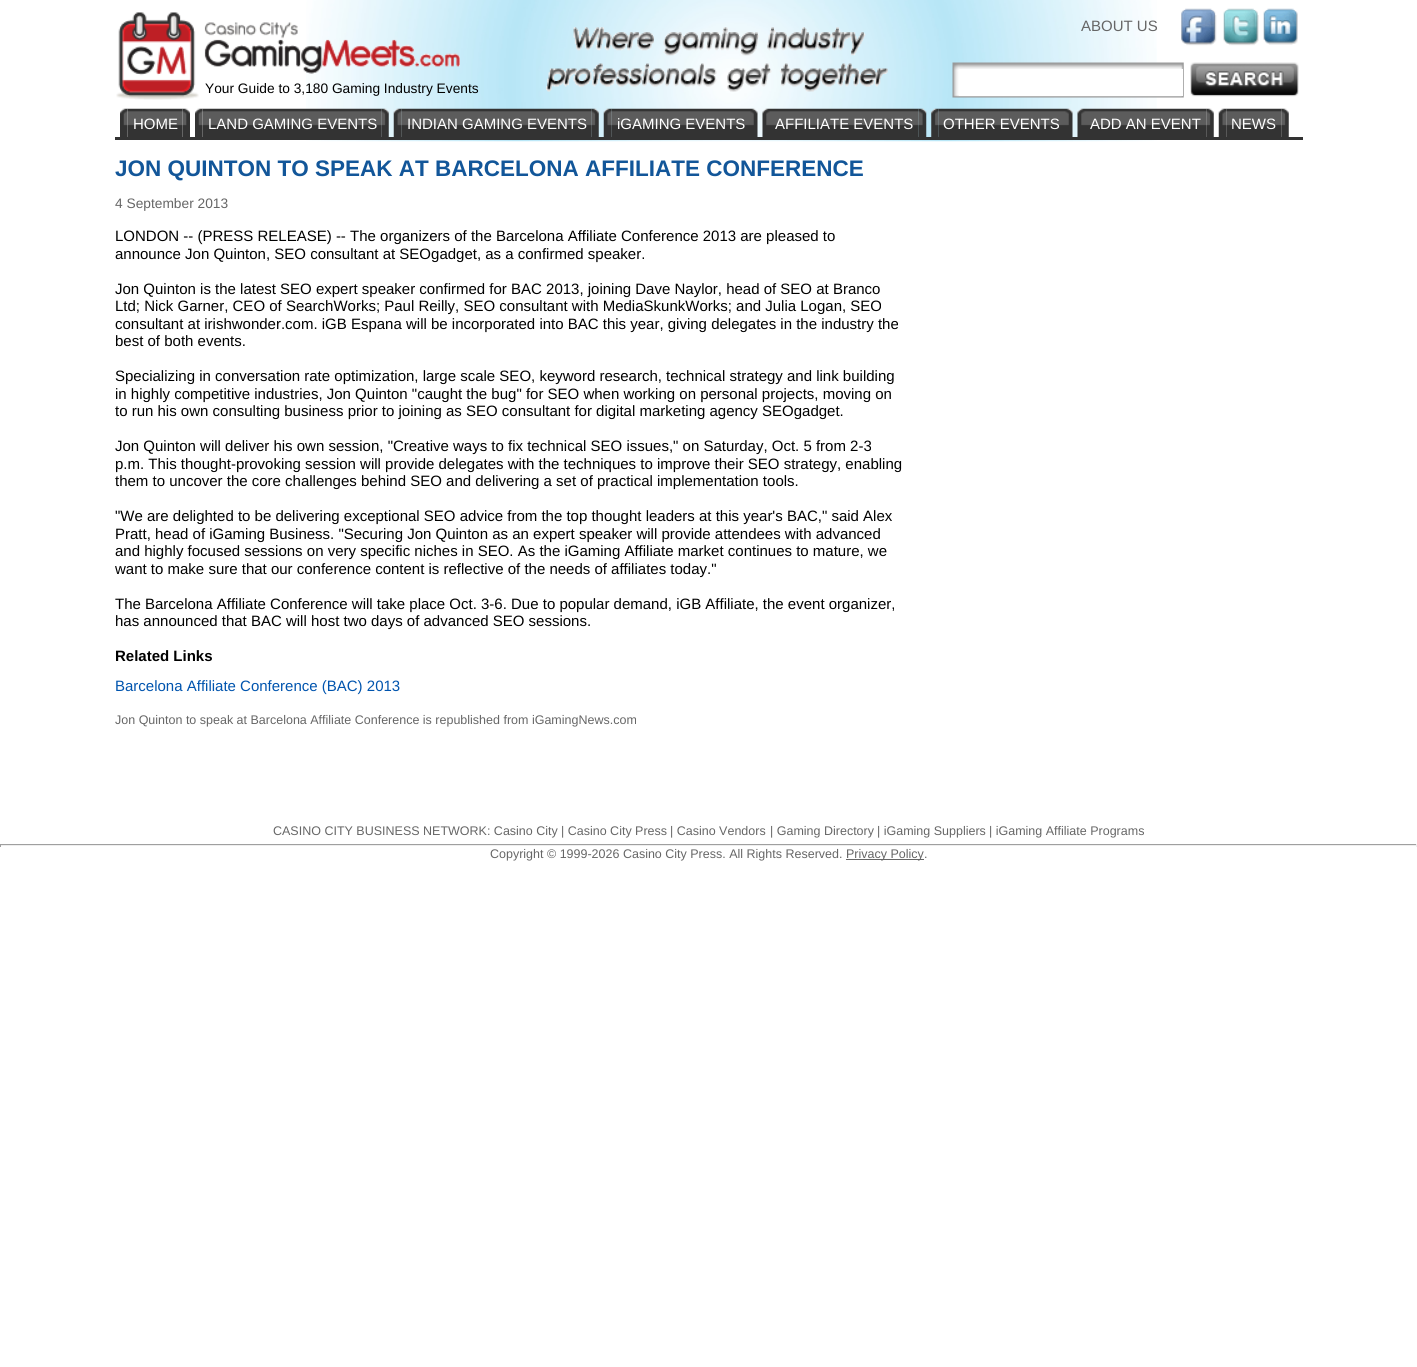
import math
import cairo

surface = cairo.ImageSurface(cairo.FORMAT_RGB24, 1417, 1367)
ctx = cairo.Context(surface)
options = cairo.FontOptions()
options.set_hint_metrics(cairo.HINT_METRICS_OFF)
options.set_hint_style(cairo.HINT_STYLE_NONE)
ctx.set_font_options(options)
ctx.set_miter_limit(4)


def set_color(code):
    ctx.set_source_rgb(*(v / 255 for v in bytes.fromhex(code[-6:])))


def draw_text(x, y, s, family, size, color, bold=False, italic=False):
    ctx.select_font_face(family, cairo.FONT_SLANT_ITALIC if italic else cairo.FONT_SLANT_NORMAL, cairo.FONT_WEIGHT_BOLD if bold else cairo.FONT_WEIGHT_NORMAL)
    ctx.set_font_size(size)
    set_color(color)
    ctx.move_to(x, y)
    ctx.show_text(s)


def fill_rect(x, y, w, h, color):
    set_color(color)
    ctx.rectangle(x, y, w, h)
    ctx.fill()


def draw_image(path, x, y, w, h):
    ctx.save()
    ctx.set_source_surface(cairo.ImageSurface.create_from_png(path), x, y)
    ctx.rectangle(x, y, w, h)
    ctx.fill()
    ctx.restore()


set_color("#ffffff")
ctx.paint()
draw_image("assets/img1.png", 306, 0, 851, 142)
draw_image("assets/img2.png", 116, 12, 344, 88)
draw_image("assets/img3.png", 546, 27, 342, 65)
draw_image("assets/img4.png", 546, 27, 342, 65)
draw_text(1081, 31, "ABOUT US", "Liberation Sans", 15, "#666666")
draw_image("assets/img5.png", 1181, 8, 36, 38)
draw_image("assets/img6.png", 1223, 8, 36, 38)
draw_image("assets/img7.png", 1263, 8, 35, 37)
draw_text(205, 93, "Your Guide to 3,180 Gaming Industry Events", "Liberation Sans", 13.75, "#000000")
draw_image("assets/img8.png", 952, 62, 232, 36)
draw_image("assets/img9.png", 1190, 62, 109, 35)
fill_rect(959, 69, 224, 27, "#ffffff")
draw_image("assets/img10.png", 120, 108, 8, 29)
draw_image("assets/img11.png", 127, 108, 56, 29)
draw_text(133, 129, "HOME", "Liberation Sans", 15, "#ffffff")
draw_image("assets/img12.png", 182, 108, 8, 29)
draw_image("assets/img10.png", 195, 108, 8, 29)
draw_image("assets/img13.png", 202, 108, 180, 29)
draw_text(208, 129, "LAND GAMING EVENTS", "Liberation Sans", 15, "#ffffff")
draw_image("assets/img14.png", 381, 108, 8, 29)
draw_image("assets/img15.png", 393, 108, 9, 29)
draw_image("assets/img16.png", 401, 108, 191, 29)
draw_text(407, 129, "INDIAN GAMING EVENTS", "Liberation Sans", 15, "#ffffff")
draw_image("assets/img17.png", 591, 108, 8, 29)
draw_image("assets/img18.png", 603, 108, 9, 29)
draw_image("assets/img19.png", 611, 108, 139, 29)
draw_text(617, 129, "iGAMING EVENTS", "Liberation Sans", 15, "#ffffff")
draw_image("assets/img20.png", 750, 108, 8, 29)
draw_image("assets/img21.png", 762, 108, 8, 29)
draw_image("assets/img22.png", 770, 108, 149, 29)
draw_text(775, 129, "AFFILIATE EVENTS", "Liberation Sans", 15, "#ffffff")
draw_image("assets/img23.png", 918, 108, 9, 29)
draw_image("assets/img24.png", 931, 108, 8, 29)
draw_image("assets/img25.png", 938, 108, 127, 29)
draw_text(943, 129, "OTHER EVENTS", "Liberation Sans", 15, "#ffffff")
draw_image("assets/img26.png", 1065, 108, 8, 29)
draw_image("assets/img27.png", 1077, 108, 8, 29)
draw_image("assets/img28.png", 1085, 108, 122, 29)
draw_text(1090, 129, "ADD AN EVENT", "Liberation Sans", 15, "#ffffff")
draw_image("assets/img29.png", 1206, 108, 8, 29)
draw_image("assets/img30.png", 1218, 108, 9, 29)
draw_image("assets/img31.png", 1226, 108, 56, 29)
draw_text(1231, 129, "NEWS", "Liberation Sans", 15, "#ffffff")
draw_image("assets/img29.png", 1281, 108, 8, 29)
fill_rect(115, 137, 1188, 3, "#333333")
draw_text(115, 176, "JON QUINTON TO SPEAK AT BARCELONA AFFILIATE CONFERENCE", "Liberation Sans", 22.5, "#125699", bold=True)
draw_text(115, 208, "4 September 2013", "Liberation Sans", 13.75, "#666666")
draw_text(115, 241, "LONDON -- (PRESS RELEASE) -- The organizers of the Barcelona Affiliate Conference 2013 are pleased to", "Liberation Sans", 15, "#000000")
draw_text(115, 259, "announce Jon Quinton, SEO consultant at SEOgadget, as a confirmed speaker.", "Liberation Sans", 15, "#000000")
draw_text(115, 294, "Jon Quinton is the latest SEO expert speaker confirmed for BAC 2013, joining Dave Naylor, head of SEO at Branco", "Liberation Sans", 15, "#000000")
draw_text(115, 311, "Ltd; Nick Garner, CEO of SearchWorks; Paul Reilly, SEO consultant with MediaSkunkWorks; and Julia Logan, SEO", "Liberation Sans", 15, "#000000")
draw_text(115, 329, "consultant at irishwonder.com. iGB Espana will be incorporated into BAC this year, giving delegates in the industry the", "Liberation Sans", 15, "#000000")
draw_text(115, 346, "best of both events.", "Liberation Sans", 15, "#000000")
draw_text(115, 381, "Specializing in conversation rate optimization, large scale SEO, keyword research, technical strategy and link building", "Liberation Sans", 15, "#000000")
draw_text(115, 399, "in highly competitive industries, Jon Quinton \"caught the bug\" for SEO when working on personal projects, moving on", "Liberation Sans", 15, "#000000")
draw_text(115, 416, "to run his own consulting business prior to joining as SEO consultant for digital marketing agency SEOgadget.", "Liberation Sans", 15, "#000000")
draw_text(115, 451, "Jon Quinton will deliver his own session, \"Creative ways to fix technical SEO issues,\" on Saturday, Oct. 5 from 2-3", "Liberation Sans", 15, "#000000")
draw_text(115, 469, "p.m. This thought-provoking session will provide delegates with the techniques to improve their SEO strategy, enabling", "Liberation Sans", 15, "#000000")
draw_text(115, 486, "them to uncover the core challenges behind SEO and delivering a set of practical implementation tools.", "Liberation Sans", 15, "#000000")
draw_text(115, 521, "\"We are delighted to be delivering exceptional SEO advice from the top thought leaders at this year's BAC,\" said Alex", "Liberation Sans", 15, "#000000")
draw_text(115, 539, "Pratt, head of iGaming Business. \"Securing Jon Quinton as an expert speaker will provide attendees with advanced", "Liberation Sans", 15, "#000000")
draw_text(115, 556, "and highly focused sessions on very specific niches in SEO. As the iGaming Affiliate market continues to mature, we", "Liberation Sans", 15, "#000000")
draw_text(115, 574, "want to make sure that our conference content is reflective of the needs of affiliates today.\"", "Liberation Sans", 15, "#000000")
draw_text(115, 609, "The Barcelona Affiliate Conference will take place Oct. 3-6. Due to popular demand, iGB Affiliate, the event organizer,", "Liberation Sans", 15, "#000000")
draw_text(115, 626, "has announced that BAC will host two days of advanced SEO sessions.", "Liberation Sans", 15, "#000000")
draw_text(115, 661, "Related Links", "Liberation Sans", 15, "#000000", bold=True)
draw_text(115, 691, "Barcelona Affiliate Conference (BAC) 2013", "Liberation Sans", 15, "#0054ae")
draw_text(115, 724, "Jon Quinton to speak at Barcelona Affiliate Conference is republished from iGamingNews.com", "Liberation Sans", 12.5, "#666666")
draw_text(273, 835, "CASINO CITY BUSINESS NETWORK: Casino City", "Liberation Sans", 12.5, "#666666")
draw_text(561, 835, "| Casino City Press", "Liberation Sans", 12.5, "#666666")
draw_text(670, 835, "| Casino Vendors", "Liberation Sans", 12.5, "#666666")
draw_text(770, 835, "| Gaming Directory", "Liberation Sans", 12.5, "#666666")
draw_text(877, 835, "| iGaming Suppliers", "Liberation Sans", 12.5, "#666666")
draw_text(989, 835, "| iGaming Affiliate Programs", "Liberation Sans", 12.5, "#666666")
fill_rect(0, 844, 1417, 1, "#9f9f9f")
fill_rect(1416, 844, 1, 3, "#eeeeee")
fill_rect(0, 845, 1417, 1, "#eeeeee")
fill_rect(0, 844, 1, 3, "#9f9f9f")
draw_text(490, 858, "Copyright © 1999-2026 Casino City Press. All Rights Reserved.", "Liberation Sans", 12.5, "#666666")
fill_rect(846, 859, 78, 1, "#666666")
draw_text(846, 858, "Privacy Policy", "Liberation Sans", 12.5, "#666666")
draw_text(924, 858, ".", "Liberation Sans", 12.5, "#666666")
surface.write_to_png("output.png")
